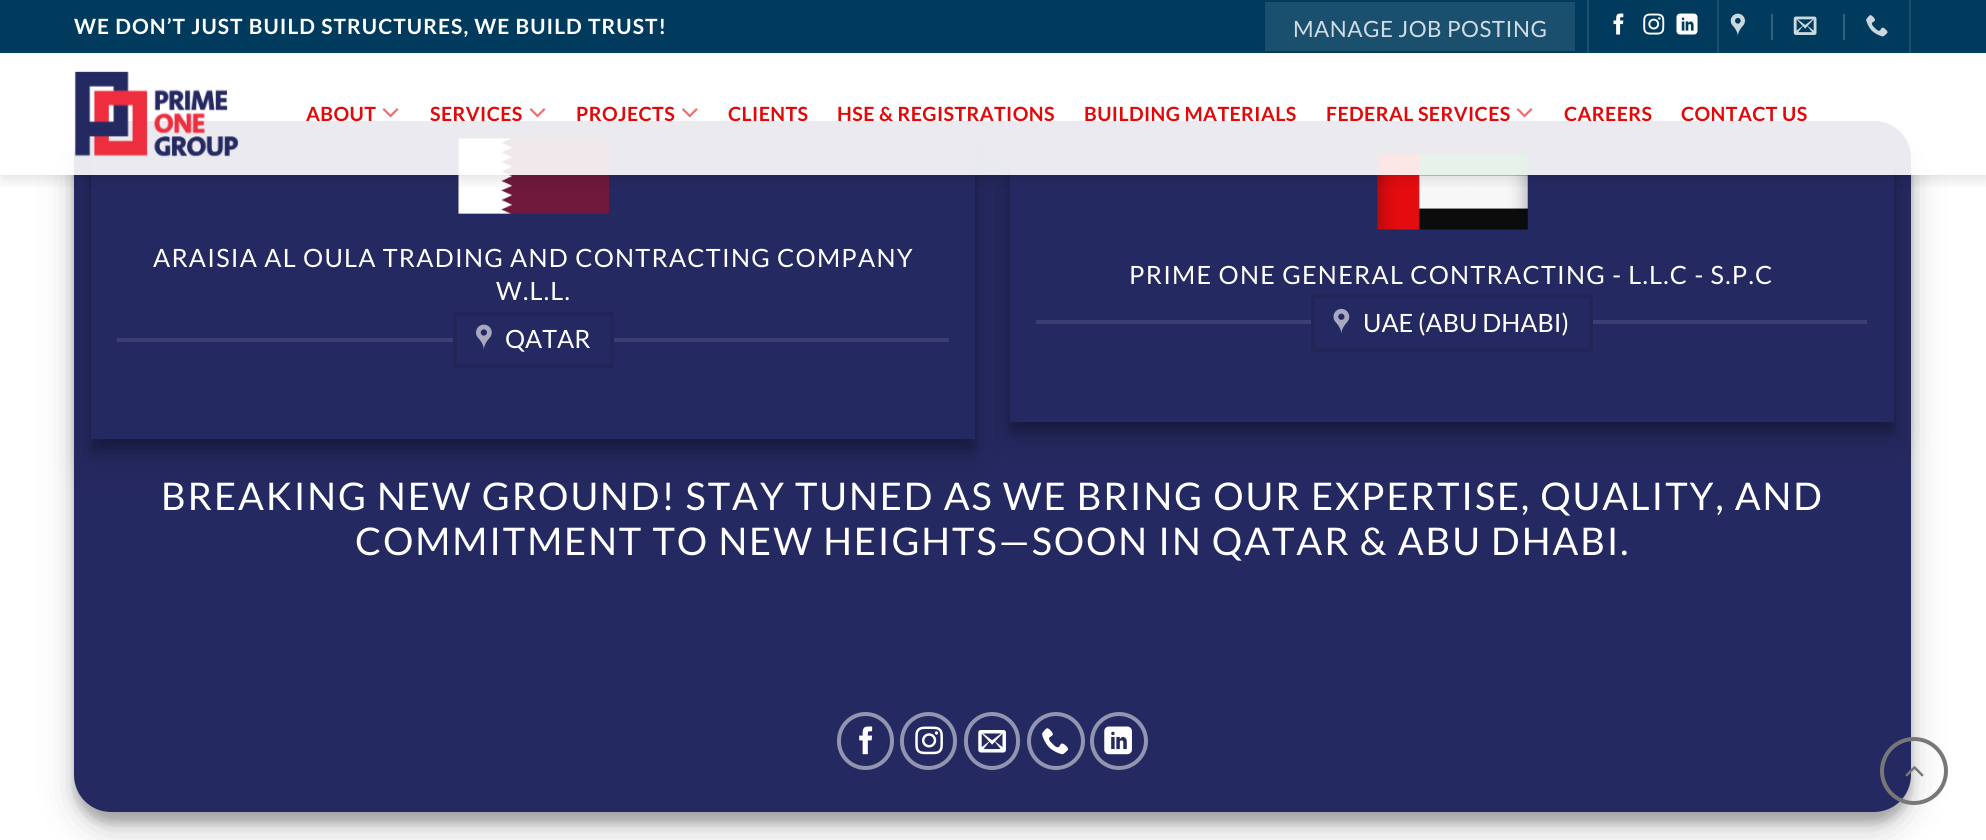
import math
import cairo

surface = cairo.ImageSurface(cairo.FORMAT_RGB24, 1986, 840)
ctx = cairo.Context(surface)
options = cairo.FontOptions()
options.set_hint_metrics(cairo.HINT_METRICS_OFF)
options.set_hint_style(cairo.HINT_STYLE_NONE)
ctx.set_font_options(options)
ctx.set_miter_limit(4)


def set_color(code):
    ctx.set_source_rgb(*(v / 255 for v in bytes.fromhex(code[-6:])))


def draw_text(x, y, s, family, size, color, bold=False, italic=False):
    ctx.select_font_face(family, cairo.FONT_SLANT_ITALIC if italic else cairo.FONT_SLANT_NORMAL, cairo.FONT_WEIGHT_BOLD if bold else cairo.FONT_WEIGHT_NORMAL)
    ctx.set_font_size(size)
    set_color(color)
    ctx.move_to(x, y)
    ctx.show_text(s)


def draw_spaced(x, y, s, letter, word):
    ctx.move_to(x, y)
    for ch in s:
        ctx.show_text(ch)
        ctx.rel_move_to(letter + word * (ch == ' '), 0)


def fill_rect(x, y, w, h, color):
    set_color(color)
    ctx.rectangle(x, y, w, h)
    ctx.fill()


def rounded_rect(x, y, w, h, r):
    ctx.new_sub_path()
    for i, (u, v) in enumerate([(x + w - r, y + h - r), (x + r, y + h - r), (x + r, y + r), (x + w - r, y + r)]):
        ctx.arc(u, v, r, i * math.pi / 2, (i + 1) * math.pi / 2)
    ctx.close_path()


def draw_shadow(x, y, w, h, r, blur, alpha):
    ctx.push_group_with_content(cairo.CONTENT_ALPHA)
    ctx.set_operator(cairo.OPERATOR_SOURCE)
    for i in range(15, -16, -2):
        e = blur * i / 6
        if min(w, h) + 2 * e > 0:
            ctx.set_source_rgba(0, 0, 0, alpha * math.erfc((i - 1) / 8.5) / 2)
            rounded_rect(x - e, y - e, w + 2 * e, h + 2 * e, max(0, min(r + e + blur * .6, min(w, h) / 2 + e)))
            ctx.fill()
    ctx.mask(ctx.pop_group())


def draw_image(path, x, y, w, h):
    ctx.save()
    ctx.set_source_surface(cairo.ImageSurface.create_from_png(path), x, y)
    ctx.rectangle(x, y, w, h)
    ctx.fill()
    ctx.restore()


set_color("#ffffff")
ctx.paint()
fill_rect(0, 67, 1986, 2, "#f2f2f2")
set_color("#000000")
draw_shadow(74, 131, 1837, 692, 37, 5, 0.22)
draw_shadow(74, 138, 1837, 692, 37, 17.5, 0.19)
set_color("#252961")
rounded_rect(74, 121, 1837, 691, 37)
ctx.fill()
ctx.save()
ctx.set_fill_rule(cairo.FILL_RULE_EVEN_ODD)
ctx.new_path()
ctx.move_to(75, 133)
ctx.line_to(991, 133)
ctx.line_to(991, 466)
ctx.line_to(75, 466)
ctx.close_path()
ctx.move_to(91, 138)
ctx.line_to(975, 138)
ctx.line_to(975, 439)
ctx.line_to(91, 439)
ctx.close_path()
ctx.clip()
set_color("#000000")
draw_shadow(91, 149, 884, 301, 0, 5, 0.22)
ctx.restore()
ctx.save()
ctx.set_fill_rule(cairo.FILL_RULE_EVEN_ODD)
ctx.new_path()
ctx.move_to(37, 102)
ctx.line_to(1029, 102)
ctx.line_to(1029, 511)
ctx.line_to(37, 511)
ctx.close_path()
ctx.move_to(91, 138)
ctx.line_to(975, 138)
ctx.line_to(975, 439)
ctx.line_to(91, 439)
ctx.close_path()
ctx.clip()
set_color("#000000")
draw_shadow(91, 156, 884, 301, 0, 17.5, 0.19)
ctx.restore()
draw_image("assets/img11.png", 458, 138, 151, 76)
ctx.save()
ctx.set_fill_rule(cairo.FILL_RULE_EVEN_ODD)
ctx.new_path()
ctx.move_to(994, 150)
ctx.line_to(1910, 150)
ctx.line_to(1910, 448)
ctx.line_to(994, 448)
ctx.close_path()
ctx.move_to(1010, 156)
ctx.line_to(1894, 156)
ctx.line_to(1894, 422)
ctx.line_to(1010, 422)
ctx.close_path()
ctx.clip()
set_color("#000000")
draw_shadow(1010, 166, 884, 266, 0, 5, 0.22)
ctx.restore()
ctx.save()
ctx.set_fill_rule(cairo.FILL_RULE_EVEN_ODD)
ctx.new_path()
ctx.move_to(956, 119)
ctx.line_to(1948, 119)
ctx.line_to(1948, 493)
ctx.line_to(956, 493)
ctx.close_path()
ctx.move_to(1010, 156)
ctx.line_to(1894, 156)
ctx.line_to(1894, 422)
ctx.line_to(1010, 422)
ctx.close_path()
ctx.clip()
set_color("#000000")
draw_shadow(1010, 173, 884, 266, 0, 17.5, 0.19)
ctx.restore()
draw_image("assets/img13.png", 1377, 154, 151, 76)
ctx.save()
ctx.rectangle(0, 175, 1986, 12)
ctx.clip()
set_color("#000000")
draw_shadow(2, 2, 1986, 175, 0, 9, 0.15)
ctx.restore()
fill_rect(0, 0, 1986, 53, "#003b5e")
ctx.select_font_face("Lato", cairo.FONT_SLANT_NORMAL, cairo.FONT_WEIGHT_BOLD)
ctx.set_font_size(21)
set_color("#ffffff")
draw_spaced(74, 34, "WE DON’T JUST BUILD STRUCTURES, WE BUILD TRUST!", 1.05, 0)
fill_rect(1265, 2, 310, 49, "#1a4f6e")
ctx.select_font_face("Lato")
ctx.set_font_size(22.4)
set_color("#d1dce2")
draw_spaced(1293, 37, "MANAGE JOB POSTING", 0.5, 0)
fill_rect(1587, 0, 2, 53, "#1a4f6e")
draw_image("assets/img1.png", 1613, 13, 11, 22)
draw_image("assets/img2.png", 1643, 13, 22, 22)
draw_image("assets/img3.png", 1676, 13, 22, 22)
fill_rect(1717, 0, 2, 53, "#1a4f6e")
draw_image("assets/img4.png", 1730, 13, 15, 23)
fill_rect(1771, 14, 2, 26, "#33627e")
draw_image("assets/img5.png", 1793, 16, 24, 19)
fill_rect(1843, 14, 2, 26, "#33627e")
draw_image("assets/img6.png", 1866, 15, 22, 22)
fill_rect(1909, 0, 2, 53, "#1a4f6e")
ctx.set_source_rgba(1, 1, 1, 0.9)
ctx.rectangle(0, 67, 1986, 108)
ctx.fill()
draw_image("assets/img7.png", 74, 71, 165, 86)
ctx.select_font_face("Lato", cairo.FONT_SLANT_NORMAL, cairo.FONT_WEIGHT_BOLD)
ctx.set_font_size(19.6)
set_color("#e10909")
draw_spaced(306, 121, "ABOUT", 0.4, 0)
draw_image("assets/img8.png", 382, 108, 17, 10)
draw_spaced(430, 121, "SERVICES", 0.4, 0)
draw_image("assets/img8.png", 529, 108, 17, 10)
draw_spaced(576, 121, "PROJECTS", 0.4, 0)
draw_image("assets/img9.png", 682, 108, 16, 10)
draw_spaced(728, 121, "CLIENTS", 0.4, 0)
draw_spaced(837, 121, "HSE & REGISTRATIONS", 0.4, 0)
draw_spaced(1084, 121, "BUILDING MATERIALS", 0.4, 0)
draw_spaced(1326, 121, "FEDERAL SERVICES", 0.4, 0)
draw_image("assets/img10.png", 1516, 108, 17, 10)
draw_spaced(1564, 121, "CAREERS", 0.4, 0)
draw_spaced(1681, 121, "CONTACT US", 0.4, 0)
ctx.select_font_face("Lato")
ctx.set_font_size(25.2)
set_color("#ffffff")
draw_spaced(153, 267, "ARAISIA AL OULA TRADING AND CONTRACTING COMPANY", 1.25, 0)
draw_spaced(496, 300, "W.L.L.", 1.25, 0)
fill_rect(117, 338, 336, 4, "#3b3e71")
ctx.rectangle(455, 314, 157, 52)
set_color("#212557")
ctx.set_line_width(4)
ctx.stroke()
draw_image("assets/img12.png", 476, 324, 16, 26)
draw_text(505, 348, "QATAR", "Lato", 25.2, "#ffffff")
fill_rect(614, 338, 335, 4, "#3b3e71")
set_color("#ffffff")
draw_spaced(1129, 284, "PRIME ONE GENERAL CONTRACTING - L.L.C - S.P.C", 1.25, 0)
fill_rect(1036, 320, 275, 4, "#3b3e71")
ctx.rectangle(1313, 296, 278, 54)
set_color("#212557")
ctx.stroke()
draw_image("assets/img14.png", 1333, 308, 17, 26)
draw_text(1363, 332, "UAE (ABU DHABI)", "Lato", 25.2, "#ffffff")
fill_rect(1593, 320, 274, 4, "#3b3e71")
ctx.set_font_size(38.1)
set_color("#ffffff")
draw_spaced(161, 510, "BREAKING NEW GROUND! STAY TUNED AS WE BRING OUR EXPERTISE, QUALITY, AND", 1.9, 0)
draw_spaced(355, 555, "COMMITMENT TO NEW HEIGHTS—SOON IN QATAR & ABU DHABI.", 1.9, 0)
rounded_rect(839, 714, 53, 54, 26.5)
set_color("#9294b0")
ctx.stroke()
draw_image("assets/img15.png", 859, 726, 14, 29)
rounded_rect(902, 714, 53, 54, 26.5)
ctx.stroke()
draw_image("assets/img16.png", 915, 726, 28, 29)
rounded_rect(966, 714, 52, 54, 26)
ctx.stroke()
draw_image("assets/img17.png", 978, 730, 28, 23)
ctx.arc(1056, 741, 27, 0, 2 * math.pi)
ctx.stroke()
draw_image("assets/img18.png", 1042, 728, 26, 27)
ctx.arc(1119, 741, 27, 0, 2 * math.pi)
ctx.stroke()
draw_image("assets/img19.png", 1104, 726, 28, 29)
ctx.arc(1914, 771, 32, 0, 2 * math.pi)
set_color("#777777")
ctx.stroke()
draw_image("assets/img20.png", 1905, 766, 19, 11)
surface.write_to_png("output.png")
